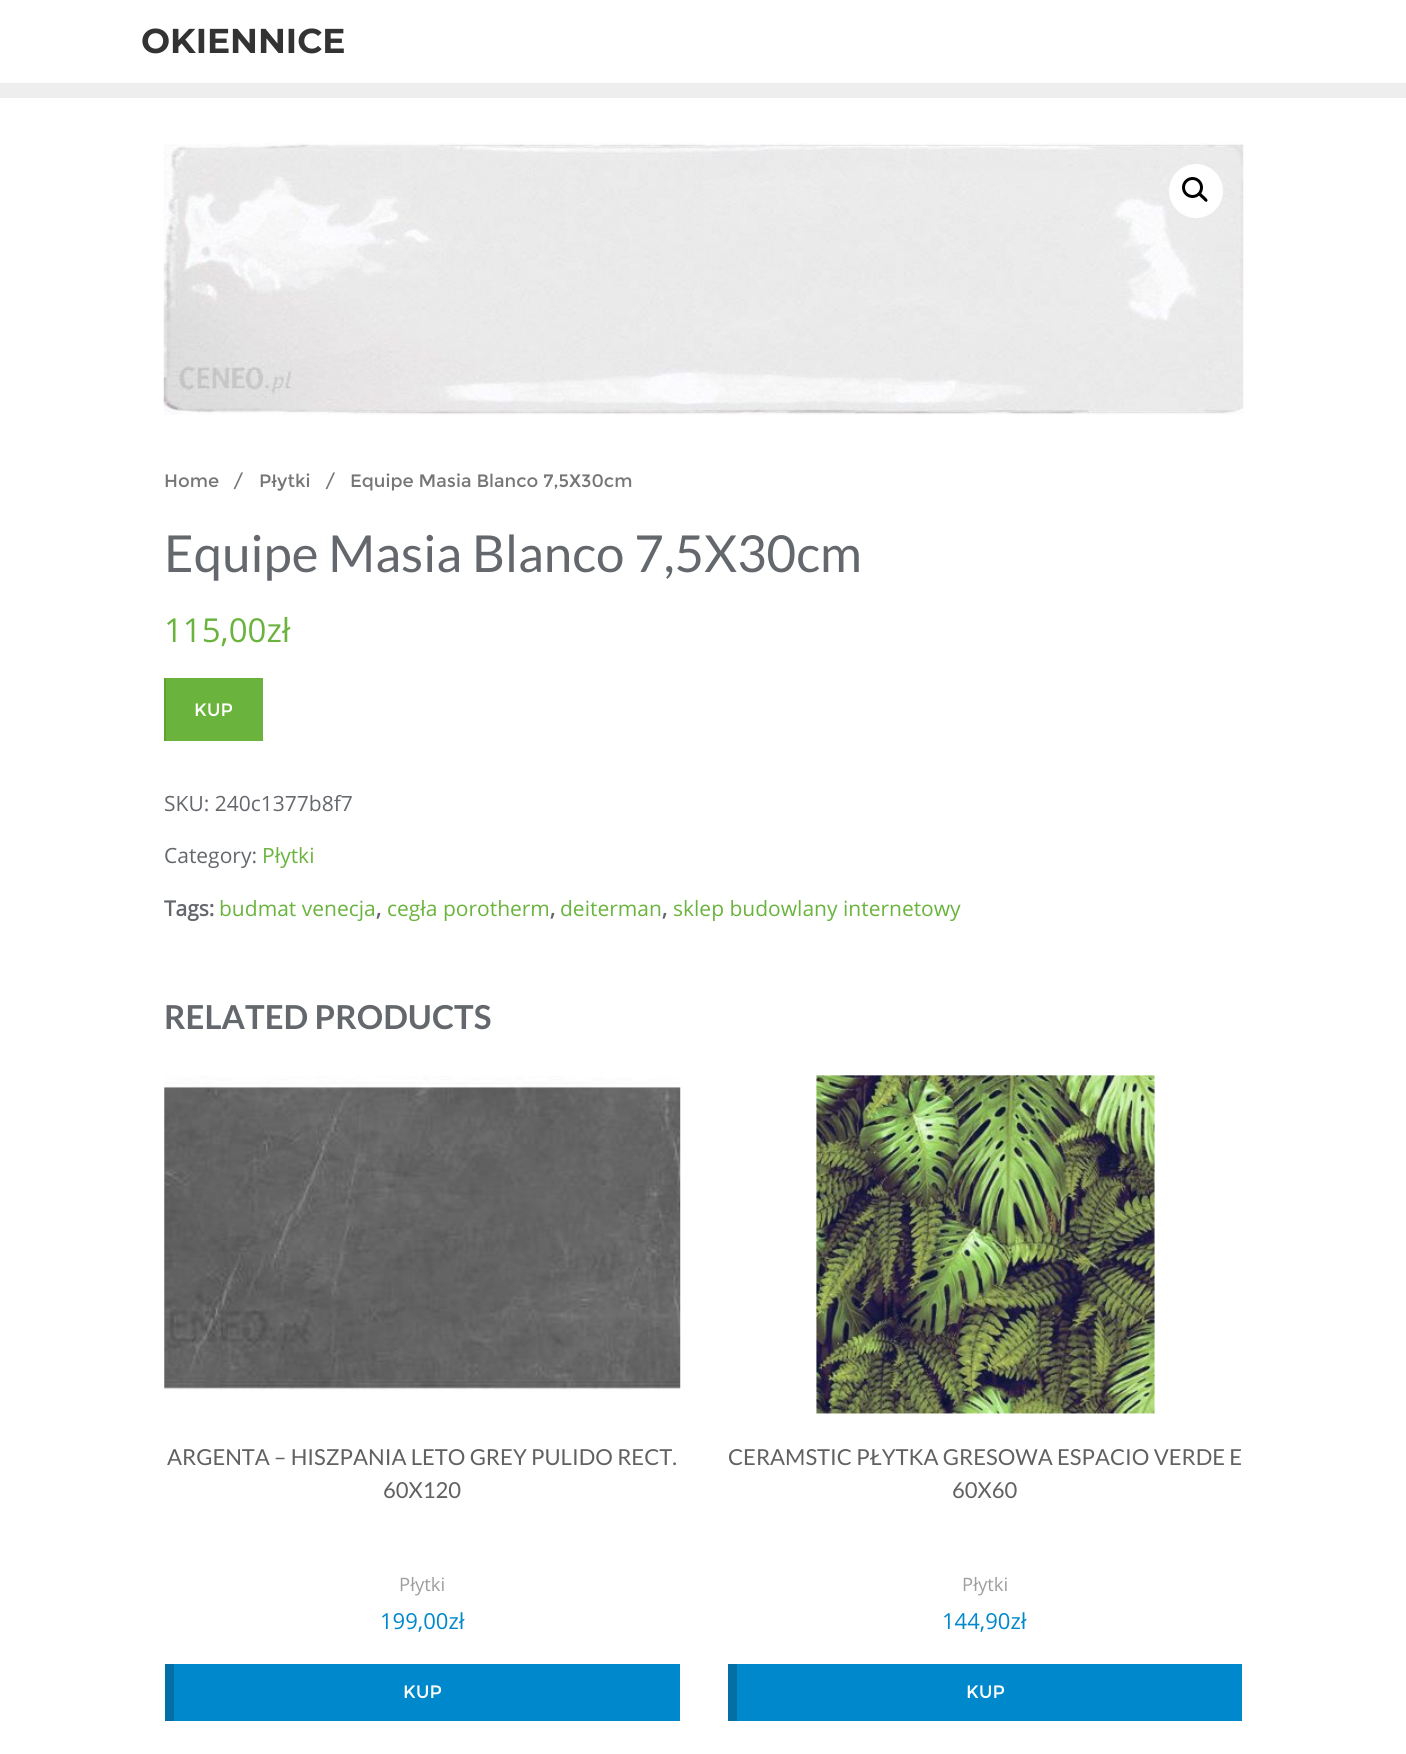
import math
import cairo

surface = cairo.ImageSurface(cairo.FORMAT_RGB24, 1406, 1754)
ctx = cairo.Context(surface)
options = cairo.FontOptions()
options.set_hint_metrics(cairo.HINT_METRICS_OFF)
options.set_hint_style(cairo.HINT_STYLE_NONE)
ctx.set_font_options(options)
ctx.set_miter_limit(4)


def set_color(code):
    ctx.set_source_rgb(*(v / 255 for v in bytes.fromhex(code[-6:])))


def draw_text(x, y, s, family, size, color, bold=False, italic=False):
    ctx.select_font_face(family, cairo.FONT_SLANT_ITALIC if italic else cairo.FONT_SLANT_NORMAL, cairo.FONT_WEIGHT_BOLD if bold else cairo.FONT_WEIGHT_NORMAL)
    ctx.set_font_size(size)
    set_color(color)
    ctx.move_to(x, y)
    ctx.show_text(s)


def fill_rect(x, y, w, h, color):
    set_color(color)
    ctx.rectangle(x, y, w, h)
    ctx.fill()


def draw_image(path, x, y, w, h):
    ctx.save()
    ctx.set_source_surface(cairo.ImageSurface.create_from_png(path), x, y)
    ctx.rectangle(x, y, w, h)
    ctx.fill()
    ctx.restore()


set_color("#ffffff")
ctx.paint()
fill_rect(0, 83, 1406, 15, "#eeeeee")
draw_text(141, 53, "OKIENNICE", "Montserrat", 34.5, "#333333", bold=True)
draw_image("assets/img1.png", 163, 143, 1081, 272)
set_color("#ffffff")
ctx.arc(1196, 191, 27, 0, 2 * math.pi)
ctx.fill()
ctx.arc(1192.5, 187.5, 9, 0, 2 * math.pi)
set_color("#000000")
ctx.set_line_width(3)
ctx.stroke()
ctx.new_path()
ctx.move_to(1199, 193)
ctx.curve_to(1200.5, 191.5, 1203, 195.5, 1204, 196)
ctx.curve_to(1205, 197, 1209, 200, 1207, 201.5)
ctx.curve_to(1205.5, 203, 1203, 199, 1202, 198.5)
ctx.curve_to(1201, 197.5, 1197, 194.5, 1199, 193)
ctx.close_path()
ctx.fill()
draw_text(164, 487, "Home", "Montserrat", 18, "#767676")
draw_text(233, 487, "/", "Montserrat", 18, "#767676")
draw_text(259, 487, "Płytki", "Montserrat", 18, "#767676")
draw_text(325, 487, "/", "Montserrat", 18, "#767676")
draw_text(350, 487, "Equipe Masia Blanco 7,5X30cm", "Montserrat", 18, "#767676")
draw_text(164, 572, "Equipe Masia Blanco 7,5X30cm", "Lato", 51, "#64686d")
draw_text(164, 642, "115,00zł", "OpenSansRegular", 33, "#6ab43e")
fill_rect(166, 678, 97, 63, "#6ab43e")
fill_rect(164, 678, 2, 63, "#5ba52f")
draw_text(194, 716, "KUP", "Montserrat", 18, "#ffffff")
draw_text(164, 811, "SKU: 240c1377b8f7", "OpenSansRegular", 21, "#64686d")
draw_text(164, 863, "Category:", "OpenSansRegular", 21, "#64686d")
draw_text(262, 863, "Płytki", "OpenSansRegular", 21, "#6ab43e")
draw_text(164, 916, "Tags:", "OpenSansRegular", 21, "#64686d", bold=True)
draw_text(219, 916, "budmat venecja", "OpenSansRegular", 21, "#6ab43e")
draw_text(376, 916, ",", "OpenSansRegular", 21, "#64686d", bold=True)
draw_text(387, 916, "cegła porotherm", "OpenSansRegular", 21, "#6ab43e")
draw_text(550, 916, ",", "OpenSansRegular", 21, "#64686d", bold=True)
draw_text(560, 916, "deiterman", "OpenSansRegular", 21, "#6ab43e")
draw_text(662, 916, ",", "OpenSansRegular", 21, "#64686d", bold=True)
draw_text(673, 916, "sklep budowlany internetowy", "OpenSansRegular", 21, "#6ab43e")
draw_text(164, 1029, "RELATED PRODUCTS", "Lato", 33, "#64686d", bold=True)
draw_image("assets/img2.png", 164, 1076, 517, 315)
draw_text(167, 1465, "ARGENTA – HISZPANIA LETO GREY PULIDO RECT.", "Lato", 22.05, "#616161")
draw_text(383, 1498, "60X120", "Lato", 22.05, "#616161")
draw_text(399, 1591, "Płytki", "OpenSansRegular", 18.5, "#9e9e9e")
draw_text(380, 1629, "199,00zł", "OpenSansRegular", 22.05, "#0088cc")
fill_rect(174, 1664, 506, 57, "#0088cc")
fill_rect(165, 1664, 9, 57, "#036fa5")
draw_text(403, 1698, "KUP", "Montserrat", 18, "#ffffff")
draw_image("assets/img3.png", 816, 1075, 339, 339)
draw_text(728, 1465, "CERAMSTIC PŁYTKA GRESOWA ESPACIO VERDE E", "Lato", 22.05, "#616161")
draw_text(952, 1498, "60X60", "Lato", 22.05, "#616161")
draw_text(962, 1591, "Płytki", "OpenSansRegular", 18.5, "#9e9e9e")
draw_text(942, 1629, "144,90zł", "OpenSansRegular", 22.05, "#0088cc")
fill_rect(737, 1664, 505, 57, "#0088cc")
fill_rect(728, 1664, 9, 57, "#036fa5")
draw_text(966, 1698, "KUP", "Montserrat", 18, "#ffffff")
surface.write_to_png("output.png")
